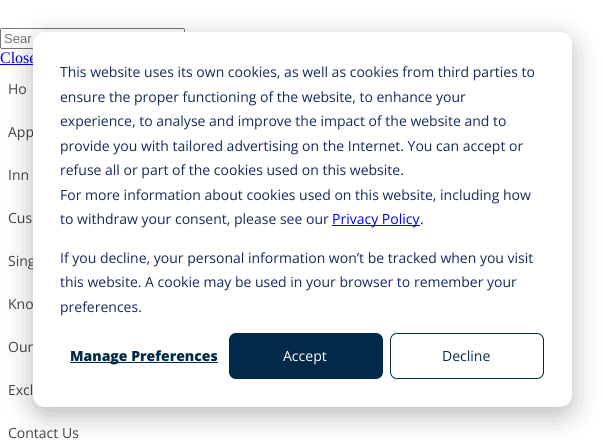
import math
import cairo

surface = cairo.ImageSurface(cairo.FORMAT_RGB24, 603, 440)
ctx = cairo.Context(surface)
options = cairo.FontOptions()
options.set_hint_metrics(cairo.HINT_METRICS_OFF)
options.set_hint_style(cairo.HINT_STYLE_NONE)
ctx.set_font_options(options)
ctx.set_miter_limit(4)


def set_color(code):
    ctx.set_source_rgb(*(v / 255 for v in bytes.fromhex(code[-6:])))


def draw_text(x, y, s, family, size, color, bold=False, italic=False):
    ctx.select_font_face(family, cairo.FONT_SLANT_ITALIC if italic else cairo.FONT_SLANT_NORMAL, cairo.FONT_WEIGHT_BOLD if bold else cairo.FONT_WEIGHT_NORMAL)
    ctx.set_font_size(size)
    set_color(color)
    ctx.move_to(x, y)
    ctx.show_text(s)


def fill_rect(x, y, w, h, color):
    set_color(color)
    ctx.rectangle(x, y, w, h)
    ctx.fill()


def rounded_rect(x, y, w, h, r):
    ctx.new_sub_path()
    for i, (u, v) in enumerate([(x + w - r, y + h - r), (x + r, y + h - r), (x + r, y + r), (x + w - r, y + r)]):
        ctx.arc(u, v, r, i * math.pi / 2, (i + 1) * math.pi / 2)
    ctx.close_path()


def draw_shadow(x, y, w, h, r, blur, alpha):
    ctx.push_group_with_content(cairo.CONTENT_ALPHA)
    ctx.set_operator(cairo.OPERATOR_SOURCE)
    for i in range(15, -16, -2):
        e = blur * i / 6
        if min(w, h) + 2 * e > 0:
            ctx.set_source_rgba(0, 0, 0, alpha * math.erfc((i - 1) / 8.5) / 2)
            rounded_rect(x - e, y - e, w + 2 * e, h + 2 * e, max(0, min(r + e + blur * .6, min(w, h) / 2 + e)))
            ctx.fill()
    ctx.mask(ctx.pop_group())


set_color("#ffffff")
ctx.paint()
rounded_rect(0.5, 28.5, 184, 20, 1.5)
set_color("#767676")
ctx.set_line_width(1)
ctx.stroke()
draw_text(4, 43, "Sear", "Liberation Sans", 13, "#757575")
draw_text(0, 63, "Close", "Liberation Serif", 16, "#0000ee")
fill_rect(0, 64, 36, 1, "#0000ee")
draw_text(8, 94, "Ho", "Open Sans", 14, "#444444")
draw_text(8, 137, "App", "Open Sans", 14, "#444444")
draw_text(8, 180, "Inn", "Open Sans", 14, "#444444")
draw_text(8, 223, "Cus", "Open Sans", 14, "#444444")
draw_text(8, 266, "Sing", "Open Sans", 14, "#444444")
draw_text(8, 309, "Kno", "Open Sans", 14, "#444444")
draw_text(8, 352, "Our", "Open Sans", 14, "#444444")
draw_text(8, 395, "Excl", "Open Sans", 14, "#444444")
draw_text(8, 438, "Contact Us", "Open Sans", 14, "#444444")
set_color("#000000")
draw_shadow(33, 40, 539, 375, 12, 14, 0.28)
set_color("#ffffff")
rounded_rect(33, 32, 539, 375, 12)
ctx.fill()
draw_text(60, 77, "This website uses its own cookies, as well as cookies from third parties to", "Open Sans", 14, "#15295a")
draw_text(60, 102, "ensure the proper functioning of the website, to enhance your", "Open Sans", 14, "#15295a")
draw_text(60, 126, "experience, to analyse and improve the impact of the website and to", "Open Sans", 14, "#15295a")
draw_text(60, 151, "provide you with tailored advertising on the Internet. You can accept or", "Open Sans", 14, "#15295a")
draw_text(60, 175, "refuse all or part of the cookies used on this website.", "Open Sans", 14, "#15295a")
draw_text(60, 200, "For more information about cookies used on this website, including how", "Open Sans", 14, "#15295a")
draw_text(60, 224, "to withdraw your consent, please see our", "Open Sans", 14, "#15295a")
fill_rect(332, 225, 88, 1, "#0000ee")
draw_text(332, 224, "Privacy Policy", "Open Sans", 14, "#0000ee")
draw_text(420, 224, ".", "Open Sans", 14, "#15295a")
draw_text(60, 263, "If you decline, your personal information won’t be tracked when you visit", "Open Sans", 14, "#15295a")
draw_text(60, 287, "this website. A cookie may be used in your browser to remember your", "Open Sans", 14, "#15295a")
draw_text(60, 312, "preferences.", "Open Sans", 14, "#15295a")
fill_rect(70, 362, 148, 1, "#002a48")
draw_text(70, 361, "Manage Preferences", "Open Sans ExtraBold", 14, "#002a48")
rounded_rect(229.5, 333.5, 153, 45, 6.5)
ctx.fill_preserve()
ctx.stroke()
draw_text(283, 361, "Accept", "Open Sans", 14, "#ffffff")
rounded_rect(390.5, 333.5, 153, 45, 6.5)
set_color("#002a48")
ctx.stroke()
draw_text(442, 361, "Decline", "Open Sans", 14, "#002a48")
surface.write_to_png("output.png")
